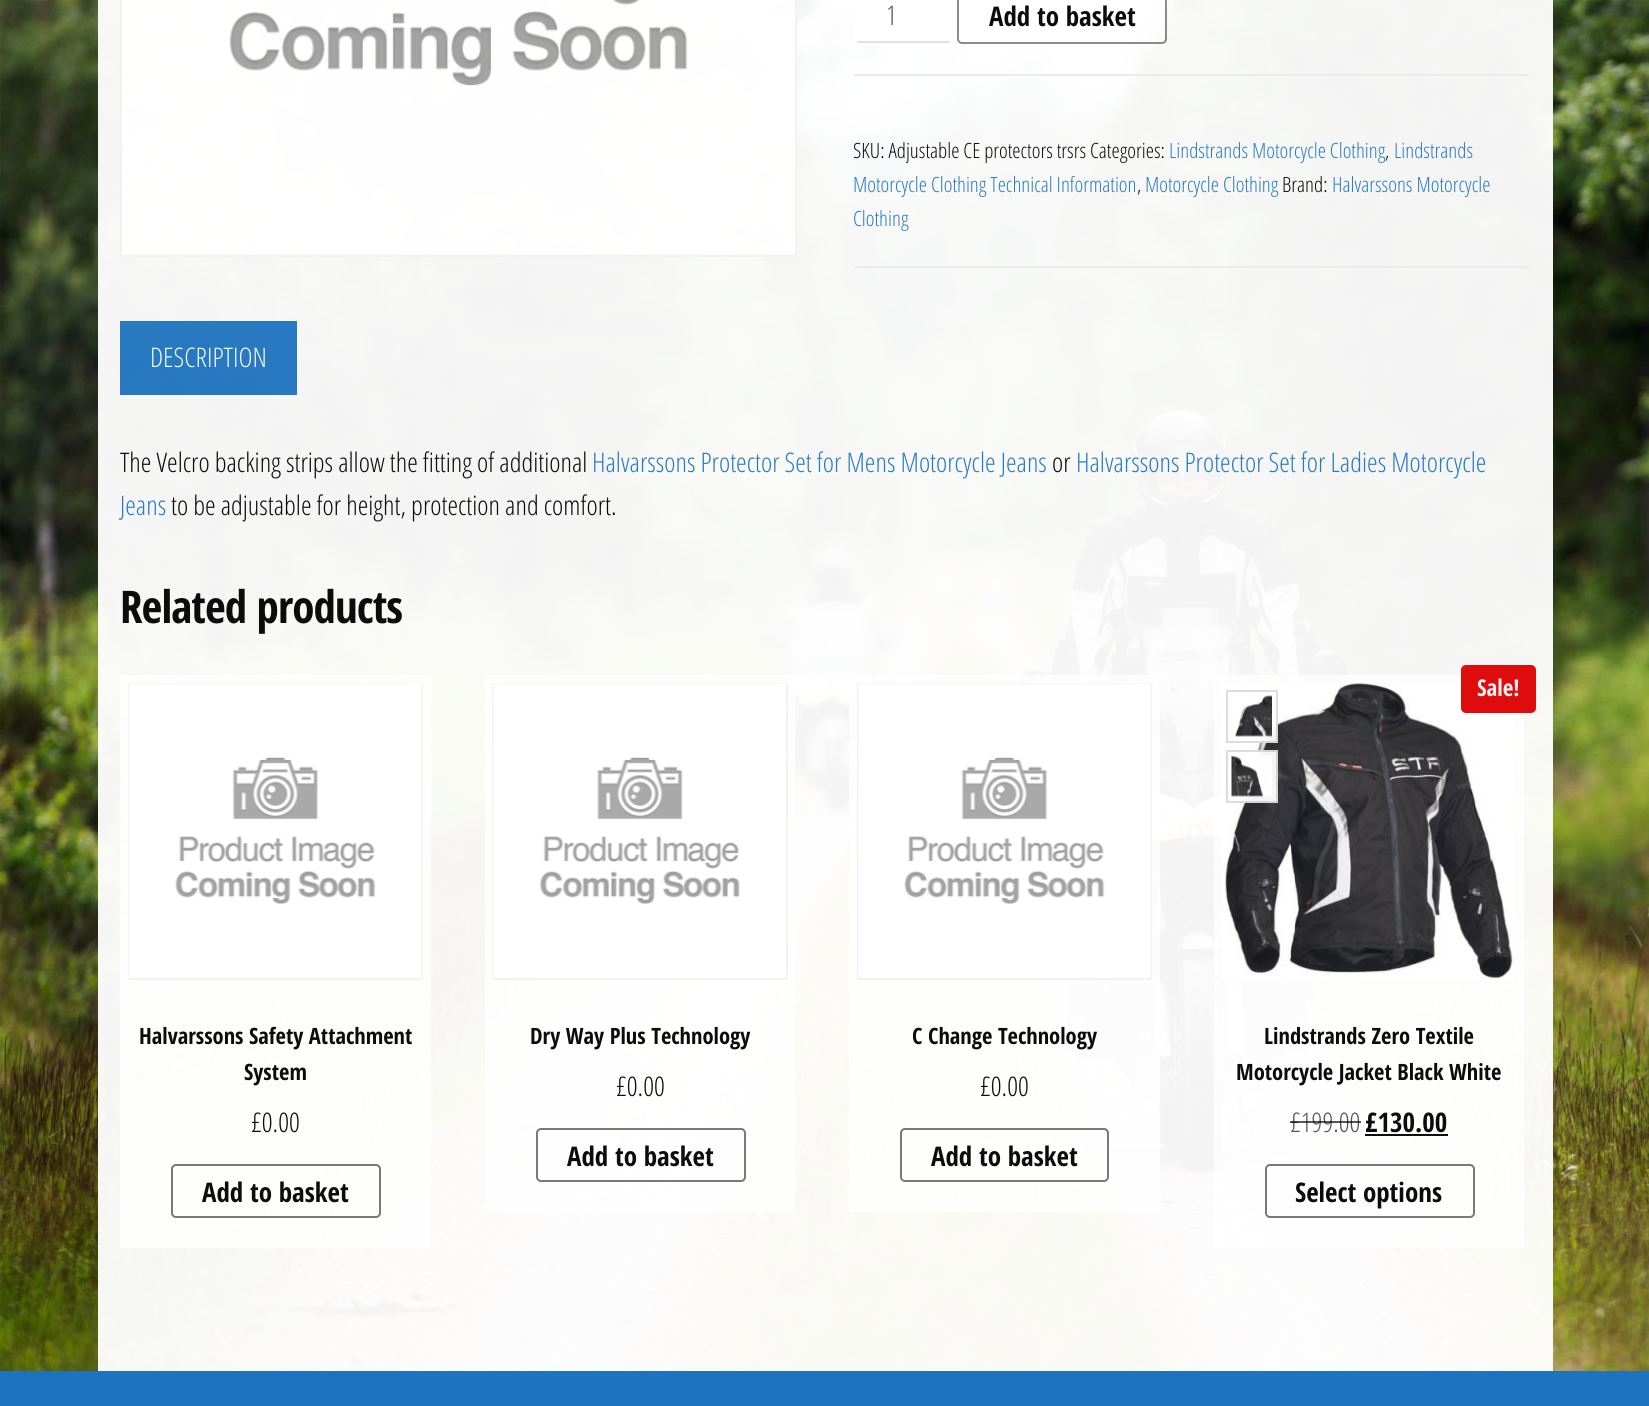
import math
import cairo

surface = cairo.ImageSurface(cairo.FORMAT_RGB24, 1649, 1406)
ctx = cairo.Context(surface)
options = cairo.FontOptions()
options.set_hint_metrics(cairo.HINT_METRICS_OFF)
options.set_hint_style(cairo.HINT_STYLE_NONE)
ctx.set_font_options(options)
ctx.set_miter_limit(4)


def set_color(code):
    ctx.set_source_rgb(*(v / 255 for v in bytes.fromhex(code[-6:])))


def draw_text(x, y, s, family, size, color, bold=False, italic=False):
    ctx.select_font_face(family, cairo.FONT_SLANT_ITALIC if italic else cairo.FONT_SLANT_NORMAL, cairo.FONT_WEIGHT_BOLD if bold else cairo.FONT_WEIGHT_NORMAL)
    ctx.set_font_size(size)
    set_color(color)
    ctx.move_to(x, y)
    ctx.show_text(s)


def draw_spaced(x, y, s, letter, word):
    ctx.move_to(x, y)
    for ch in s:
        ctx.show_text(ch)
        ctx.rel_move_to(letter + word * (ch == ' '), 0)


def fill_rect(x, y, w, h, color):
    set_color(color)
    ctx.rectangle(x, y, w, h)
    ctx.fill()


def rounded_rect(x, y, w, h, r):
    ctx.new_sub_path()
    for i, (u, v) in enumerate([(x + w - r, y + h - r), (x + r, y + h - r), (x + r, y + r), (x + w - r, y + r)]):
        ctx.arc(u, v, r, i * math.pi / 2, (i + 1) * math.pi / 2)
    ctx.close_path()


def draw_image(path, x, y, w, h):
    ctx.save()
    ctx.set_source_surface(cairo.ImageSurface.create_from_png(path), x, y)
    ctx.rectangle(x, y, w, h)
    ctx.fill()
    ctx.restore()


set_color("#ffffff")
ctx.paint()
draw_image("assets/img1.png", 0, 0, 1649, 1371)
ctx.set_source_rgba(1, 1, 1, 0.95)
ctx.rectangle(98, 0, 1455, 1371)
ctx.fill()
ctx.rectangle(121, -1, 675, 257)
ctx.set_source_rgba(0.949, 0.949, 0.949, 0.95)
ctx.stroke()
draw_image("assets/img2.png", 122, 0, 673, 255)
ctx.set_source_rgba(0.918, 0.918, 0.918, 0.95)
ctx.rectangle(854, 74, 676, 2)
ctx.fill()
ctx.set_source_rgba(1, 1, 1, 0.95)
rounded_rect(854, -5, 97, 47, 5)
ctx.fill()
ctx.set_source_rgba(0.886, 0.886, 0.886, 0.95)
ctx.rectangle(857, 41, 93, 2)
ctx.fill()
draw_text(886, 25, "1", "Open Sans Condensed Light", 27, "#4f5355")
rounded_rect(958, -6, 208, 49, 4)
ctx.set_source_rgba(0, 0, 0, 0.45)
ctx.stroke()
draw_text(989, 26, "Add to basket", "Open Sans Condensed", 27, "#0c0c0c", bold=True)
ctx.set_source_rgba(0.918, 0.918, 0.918, 0.95)
ctx.rectangle(854, 266, 676, 2)
ctx.fill()
draw_text(853, 158, "SKU: Adjustable CE protectors trsrs Categories:", "Open Sans Condensed Light", 21, "#0c0c0c")
draw_text(1169, 158, "Lindstrands Motorcycle Clothing", "Open Sans Condensed Light", 21, "#297ac1")
draw_text(1385, 158, ",", "Open Sans Condensed Light", 21, "#0c0c0c")
draw_text(1394, 158, "Lindstrands", "Open Sans Condensed Light", 21, "#297ac1")
draw_text(853, 192, "Motorcycle Clothing Technical Information", "Open Sans Condensed Light", 21, "#297ac1")
draw_text(1137, 192, ",", "Open Sans Condensed Light", 21, "#0c0c0c")
draw_text(1145, 192, "Motorcycle Clothing", "Open Sans Condensed Light", 21, "#297ac1")
draw_text(1282, 192, "Brand:", "Open Sans Condensed Light", 21, "#0c0c0c")
draw_text(1332, 192, "Halvarssons Motorcycle", "Open Sans Condensed Light", 21, "#297ac1")
draw_text(853, 226, "Clothing", "Open Sans Condensed Light", 21, "#297ac1")
ctx.set_source_rgba(0.118, 0.451, 0.745, 0.95)
ctx.rectangle(120, 321, 177, 74)
ctx.fill()
fill_rect(120, 395, 177, 3, "#f4f8fc")
draw_text(150, 367, "DESCRIPTION", "Open Sans Condensed Light", 27, "#f4f8fc")
draw_text(120, 472, "The Velcro backing strips allow the fitting of additional", "Open Sans Condensed Light", 27, "#0c0c0c")
draw_text(592, 472, "Halvarssons Protector Set for Mens Motorcycle Jeans", "Open Sans Condensed Light", 27, "#297ac1")
draw_text(1052, 472, "or", "Open Sans Condensed Light", 27, "#0c0c0c")
draw_text(1076, 472, "Halvarssons Protector Set for Ladies Motorcycle", "Open Sans Condensed Light", 27, "#297ac1")
draw_text(120, 515, "Jeans", "Open Sans Condensed Light", 27, "#297ac1")
draw_text(171, 515, "to be adjustable for height, protection and comfort.", "Open Sans Condensed Light", 27, "#0c0c0c")
ctx.select_font_face("Open Sans Condensed", cairo.FONT_SLANT_NORMAL, cairo.FONT_WEIGHT_BOLD)
ctx.set_font_size(45)
draw_spaced(120, 623, "Related products", -0.9, 0)
ctx.set_source_rgba(1, 1, 1, 0.77)
ctx.rectangle(120, 675, 311, 573)
ctx.fill()
ctx.rectangle(129, 684, 293, 295)
set_color("#f3f3f3")
ctx.stroke()
draw_image("assets/img3.png", 129, 683, 293, 295)
draw_text(139, 1044, "Halvarssons Safety Attachment", "Open Sans Condensed", 22.5, "#0c0c0c", bold=True)
draw_text(244, 1080, "System", "Open Sans Condensed", 22.5, "#0c0c0c", bold=True)
draw_text(251, 1132, "£0.00", "Open Sans Condensed Light", 27, "#0c0c0c")
rounded_rect(172, 1165, 208, 52, 4)
set_color("#797979")
ctx.stroke()
draw_text(202, 1202, "Add to basket", "Open Sans Condensed", 27, "#0c0c0c", bold=True)
ctx.set_source_rgba(1, 1, 1, 0.77)
ctx.rectangle(485, 675, 310, 537)
ctx.fill()
ctx.rectangle(493, 684, 294, 295)
set_color("#f3f3f3")
ctx.stroke()
draw_image("assets/img4.png", 493, 683, 293, 294)
draw_text(530, 1044, "Dry Way Plus Technology", "Open Sans Condensed", 22.5, "#0c0c0c", bold=True)
draw_text(616, 1096, "£0.00", "Open Sans Condensed Light", 27, "#0c0c0c")
rounded_rect(537, 1129, 208, 52, 4)
set_color("#797979")
ctx.stroke()
draw_text(567, 1166, "Add to basket", "Open Sans Condensed", 27, "#0c0c0c", bold=True)
ctx.set_source_rgba(1, 1, 1, 0.77)
ctx.rectangle(849, 675, 311, 537)
ctx.fill()
ctx.rectangle(858, 684, 293, 295)
ctx.set_source_rgba(0.949, 0.949, 0.949, 0.95)
ctx.stroke()
draw_image("assets/img5.png", 858, 683, 293, 295)
draw_text(912, 1044, "C Change Technology", "Open Sans Condensed", 22.5, "#0c0c0c", bold=True)
draw_text(980, 1096, "£0.00", "Open Sans Condensed Light", 27, "#0c0c0c")
rounded_rect(901, 1129, 207, 52, 4)
set_color("#797979")
ctx.stroke()
draw_text(931, 1166, "Add to basket", "Open Sans Condensed", 27, "#0c0c0c", bold=True)
ctx.set_source_rgba(1, 1, 1, 0.77)
ctx.rectangle(1214, 675, 310, 573)
ctx.fill()
draw_image("assets/img6.png", 1222, 683, 291, 296)
ctx.set_source_rgba(0.867, 0, 0, 0.95)
rounded_rect(1461, 665, 75, 48, 5)
ctx.fill()
draw_text(1477, 696, "Sale!", "Open Sans Condensed", 23, "#fdf3f3", bold=True)
draw_text(1264, 1044, "Lindstrands Zero Textile", "Open Sans Condensed", 22.5, "#0c0c0c", bold=True)
draw_text(1236, 1080, "Motorcycle Jacket Black White", "Open Sans Condensed", 22.5, "#0c0c0c", bold=True)
draw_text(1290, 1132, "£199.00", "Open Sans Condensed Light", 27, "#555555")
ctx.set_source_rgba(0, 0, 0, 0.66)
ctx.rectangle(1290, 1121, 11, 2)
ctx.fill()
ctx.rectangle(1301, 1121, 60, 2)
ctx.fill()
draw_text(1365, 1132, "£130.00", "Open Sans Condensed", 27, "#0c0c0c", bold=True)
fill_rect(1365, 1134, 83, 2, "#0d0d0d")
ctx.set_source_rgba(1, 1, 1, 0.95)
ctx.rectangle(1254, 721, 24, 22)
ctx.fill()
ctx.rectangle(1227, 691, 50, 51)
ctx.set_source_rgba(0, 0, 0, 0.14)
ctx.stroke()
draw_image("assets/img7.png", 1235, 695, 37, 42)
ctx.set_source_rgba(1, 1, 1, 0.95)
ctx.rectangle(1237, 750, 41, 53)
ctx.fill()
ctx.rectangle(1227, 751, 50, 51)
ctx.set_source_rgba(0, 0, 0, 0.14)
ctx.stroke()
draw_image("assets/img8.png", 1231, 755, 41, 42)
rounded_rect(1266, 1165, 208, 52, 4)
set_color("#797979")
ctx.stroke()
draw_text(1295, 1202, "Select options", "Open Sans Condensed", 27, "#0c0c0c", bold=True)
fill_rect(0, 1371, 1649, 35, "#1e73be")
surface.write_to_png("output.png")
